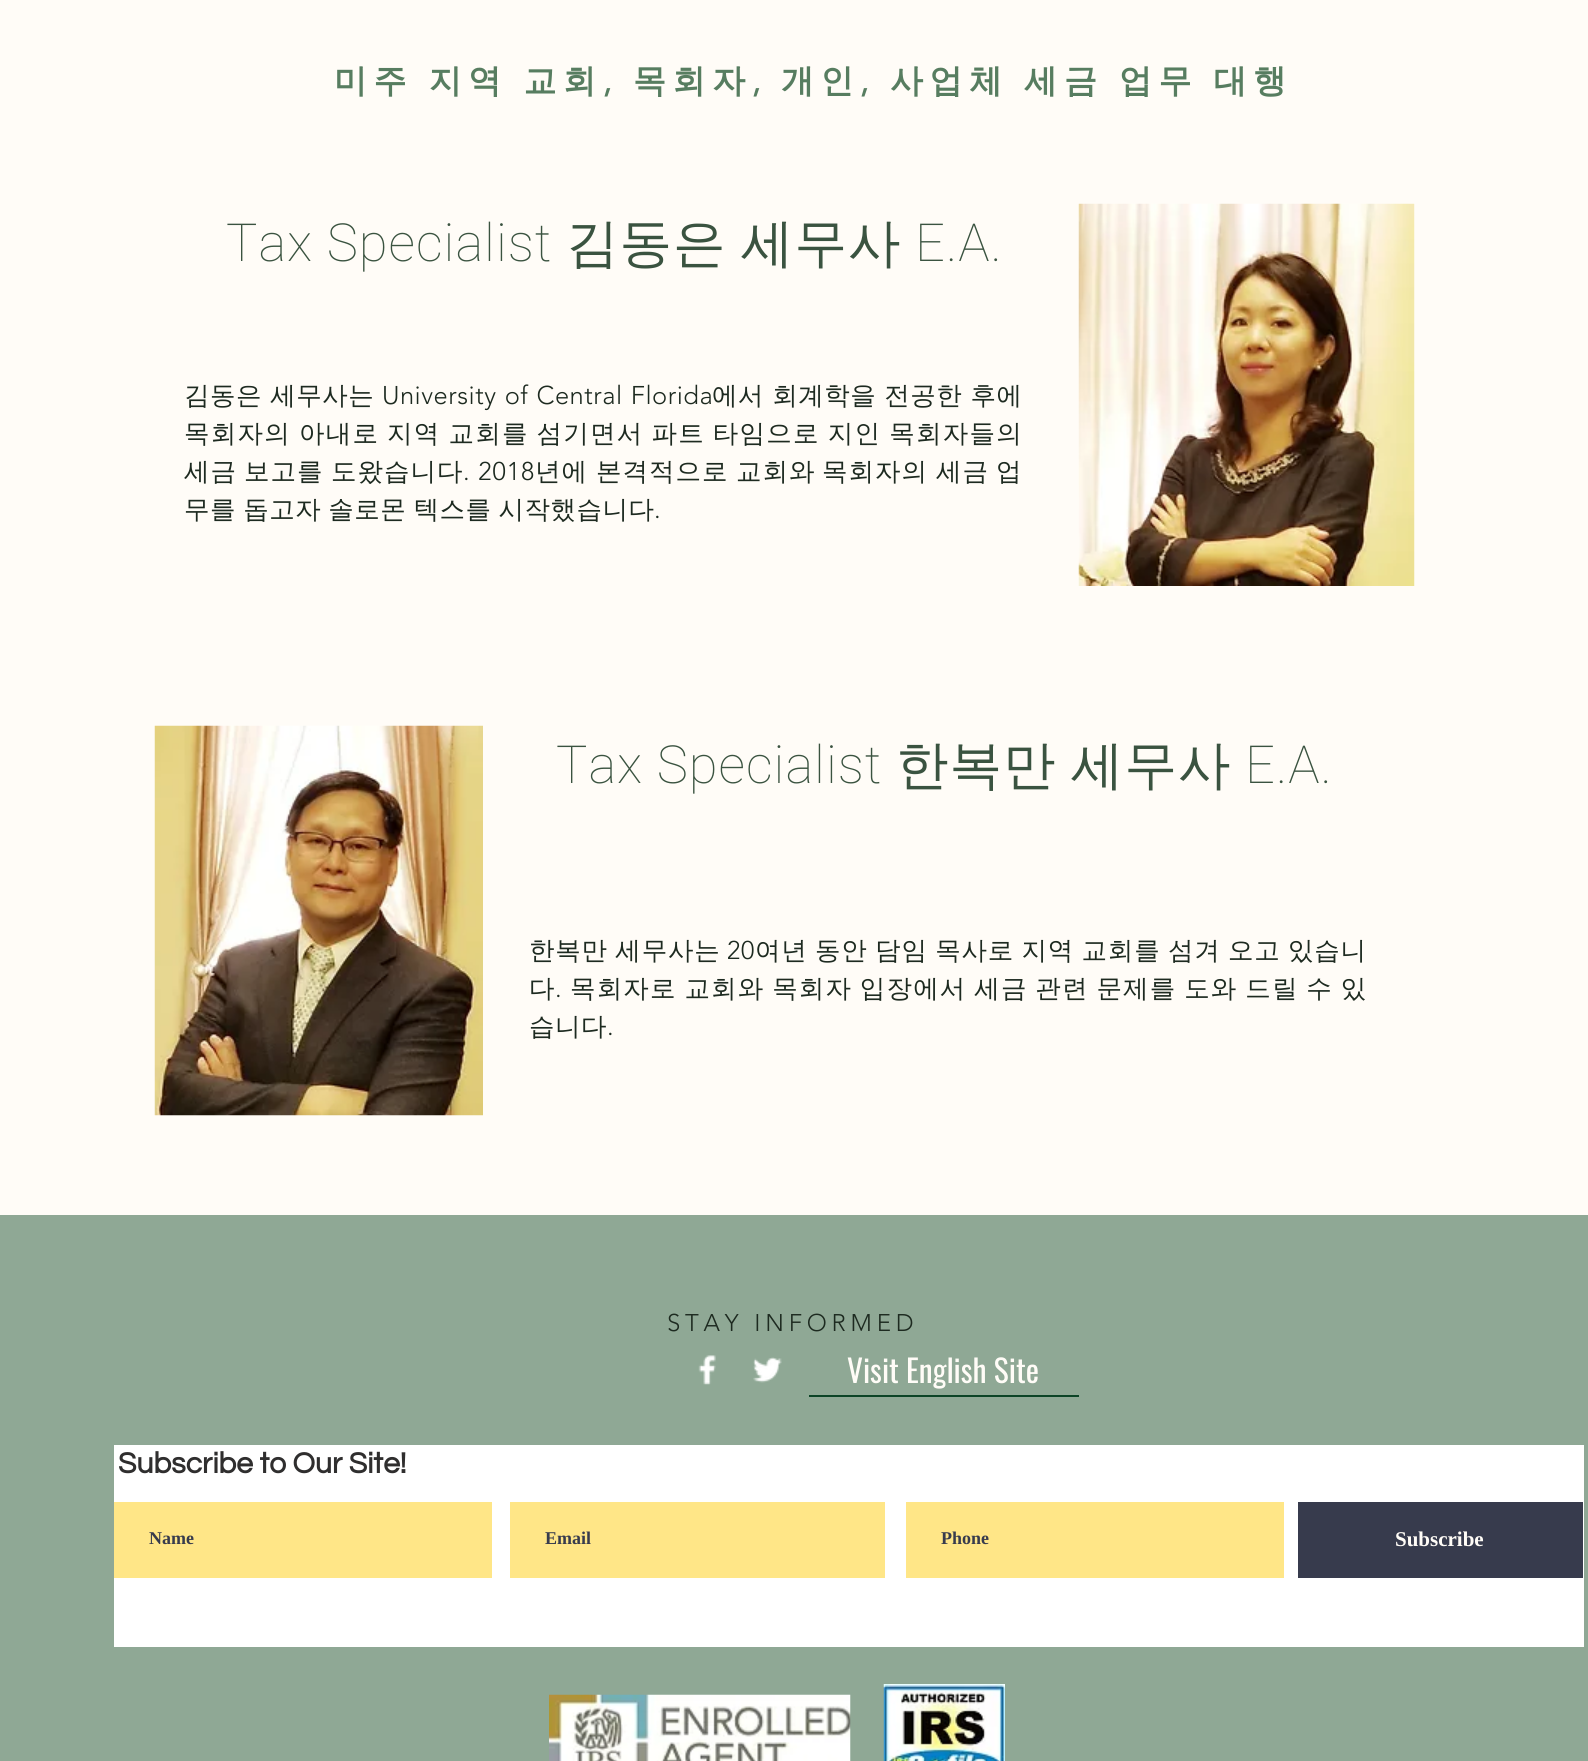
import math
import cairo

surface = cairo.ImageSurface(cairo.FORMAT_RGB24, 1588, 1761)
ctx = cairo.Context(surface)
options = cairo.FontOptions()
options.set_hint_metrics(cairo.HINT_METRICS_OFF)
options.set_hint_style(cairo.HINT_STYLE_NONE)
ctx.set_font_options(options)
ctx.set_miter_limit(4)


def set_color(code):
    ctx.set_source_rgb(*(v / 255 for v in bytes.fromhex(code[-6:])))


def draw_text(x, y, s, family, size, color, bold=False, italic=False):
    ctx.select_font_face(family, cairo.FONT_SLANT_ITALIC if italic else cairo.FONT_SLANT_NORMAL, cairo.FONT_WEIGHT_BOLD if bold else cairo.FONT_WEIGHT_NORMAL)
    ctx.set_font_size(size)
    set_color(color)
    ctx.move_to(x, y)
    ctx.show_text(s)


def draw_spaced(x, y, s, letter, word):
    ctx.move_to(x, y)
    for ch in s:
        ctx.show_text(ch)
        ctx.rel_move_to(letter + word * (ch == ' '), 0)


def fill_rect(x, y, w, h, color):
    set_color(color)
    ctx.rectangle(x, y, w, h)
    ctx.fill()


def draw_image(path, x, y, w, h):
    ctx.save()
    ctx.set_source_surface(cairo.ImageSurface.create_from_png(path), x, y)
    ctx.rectangle(x, y, w, h)
    ctx.fill()
    ctx.restore()


set_color("#fffcf7")
ctx.paint()
ctx.select_font_face("WenQuanYi Zen Hei", cairo.FONT_SLANT_NORMAL, cairo.FONT_WEIGHT_BOLD)
ctx.set_font_size(33)
set_color("#577d60")
draw_spaced(334, 92, "미주 지역 교회", 6.6, -1)
ctx.select_font_face("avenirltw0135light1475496", cairo.FONT_SLANT_NORMAL, cairo.FONT_WEIGHT_BOLD)
draw_spaced(603, 92, ",", 6.6, 0)
ctx.select_font_face("WenQuanYi Zen Hei", cairo.FONT_SLANT_NORMAL, cairo.FONT_WEIGHT_BOLD)
draw_spaced(633, 92, "목회자", 6.6, 0)
ctx.select_font_face("avenirltw0135light1475496", cairo.FONT_SLANT_NORMAL, cairo.FONT_WEIGHT_BOLD)
draw_spaced(752, 92, ",", 6.6, 0)
ctx.select_font_face("WenQuanYi Zen Hei", cairo.FONT_SLANT_NORMAL, cairo.FONT_WEIGHT_BOLD)
draw_spaced(781, 92, "개인", 6.6, 0)
ctx.select_font_face("avenirltw0135light1475496", cairo.FONT_SLANT_NORMAL, cairo.FONT_WEIGHT_BOLD)
draw_spaced(860, 92, ",", 6.6, 0)
ctx.select_font_face("WenQuanYi Zen Hei", cairo.FONT_SLANT_NORMAL, cairo.FONT_WEIGHT_BOLD)
draw_spaced(890, 92, "사업체 세금 업무 대행", 6.6, -1)
ctx.select_font_face("Roboto Thin")
ctx.set_font_size(52.5)
set_color("#3a5340")
draw_spaced(226, 261, "Tax Specialist", 1, 0)
ctx.select_font_face("WenQuanYi Zen Hei Medium")
draw_spaced(566, 261, "김동은", 1, 0)
draw_spaced(741, 261, "세무사", 1, 0)
ctx.select_font_face("Roboto Thin")
draw_spaced(915, 261, "E.A.", 1, 0)
draw_image("assets/img1.png", 1078, 203, 337, 383)
ctx.select_font_face("WenQuanYi Zen Hei Medium")
ctx.set_font_size(25.5)
set_color("#1d2a20")
draw_spaced(184, 404, "김동은 세무사는", 0.5, 0)
ctx.select_font_face("avenirltw0135light1475496 Light")
draw_spaced(382, 404, "University of Central Florida", 0.5, 1)
ctx.select_font_face("WenQuanYi Zen Hei Medium")
draw_spaced(712, 404, "에서 회계학을 전공한 후에", 0.5, 0)
draw_spaced(184, 442, "목회자의 아내로 지역 교회를 섬기면서 파트 타임으로 지인 목회자들의", 1.25, -1)
draw_spaced(184, 480, "세금", 1, 0)
draw_spaced(244, 480, "보고를", 1, 0)
draw_spaced(331, 480, "도왔습니다", 1, 0)
ctx.select_font_face("avenirltw0135light1475496 Light")
draw_spaced(463, 480, ". 2018", 1, 0)
ctx.select_font_face("WenQuanYi Zen Hei Medium")
draw_spaced(535, 480, "년에", 1, 0)
draw_spaced(596, 480, "본격적으로", 1, 0)
draw_spaced(736, 480, "교회와", 1, 0)
draw_spaced(822, 480, "목회자의", 1, 0)
draw_spaced(936, 480, "세금", 1, 0)
draw_spaced(996, 480, "업", 1, 0)
draw_spaced(184, 518, "무를 돕고자 솔로몬 텍스를 시작했습니다", 0.5, -1)
ctx.select_font_face("avenirltw0135light1475496 Light")
draw_spaced(654, 518, ".", 0.5, 0)
draw_image("assets/img2.png", 154, 725, 329, 391)
ctx.select_font_face("Roboto Thin")
ctx.set_font_size(52.5)
set_color("#3a5340")
draw_spaced(556, 783, "Tax Specialist", 1, 0)
ctx.select_font_face("WenQuanYi Zen Hei Medium")
draw_spaced(896, 783, "한복만", 1, 0)
draw_spaced(1071, 783, "세무사", 1, 0)
ctx.select_font_face("Roboto Thin")
draw_spaced(1245, 783, "E.A.", 1, 0)
ctx.select_font_face("WenQuanYi Zen Hei Medium")
ctx.set_font_size(25.5)
set_color("#1d2a20")
draw_spaced(529, 959, "한복만 세무사는", 0.8, -1)
ctx.select_font_face("avenirltw0135light1475496 Light")
draw_spaced(727, 959, "20", 0.8, 0)
ctx.select_font_face("WenQuanYi Zen Hei Medium")
draw_spaced(755, 959, "여년 동안 담임 목사로 지역 교회를 섬겨 오고 있습니", 0.8, -1)
draw_spaced(529, 997, "다", 1.15, 0)
ctx.select_font_face("avenirltw0135light1475496 Light")
draw_spaced(555, 997, ".", 1.15, 0)
ctx.select_font_face("WenQuanYi Zen Hei Medium")
draw_spaced(570, 997, "목회자로 교회와 목회자 입장에서 세금 관련 문제를 도와 드릴 수 있", 1.15, -1)
draw_spaced(529, 1035, "습니다", 0.5, 0)
ctx.select_font_face("avenirltw0135light1475496 Light")
draw_spaced(607, 1035, ".", 0.5, 0)
fill_rect(0, 1215, 1588, 546, "#8fa895")
ctx.set_font_size(24)
set_color("#1d2a20")
draw_spaced(667, 1331, "STAY INFORMED", 4.75, 0)
draw_image("assets/img3.png", 698, 1355, 18, 30)
draw_image("assets/img4.png", 753, 1357, 29, 26)
fill_rect(809, 1395, 270, 2, "#0c4426")
draw_text(847, 1383, "Visit English Site", "Oswald", 31.5, "#fffcf7")
fill_rect(114, 1445, 1470, 202, "#ffffff")
draw_text(118, 1473, "Subscribe to Our Site!", "Questrial", 30, "#2f2e2e", bold=True)
fill_rect(114, 1502, 378, 76, "#ffe687")
draw_text(149, 1544, "Name", "Liberation Serif", 18, "#373b4d", bold=True)
fill_rect(510, 1502, 375, 76, "#ffe687")
draw_text(545, 1544, "Email", "Liberation Serif", 18, "#373b4d", bold=True)
fill_rect(906, 1502, 378, 76, "#ffe687")
draw_text(941, 1544, "Phone", "Liberation Serif", 18, "#373b4d", bold=True)
fill_rect(1298, 1502, 285, 76, "#373b4d")
draw_text(1395, 1546, "Subscribe", "Liberation Serif", 21, "#fffcf7", bold=True)
draw_image("assets/img5.png", 549, 1694, 302, 67)
draw_image("assets/img6.png", 883, 1684, 122, 77)
surface.write_to_png("output.png")
